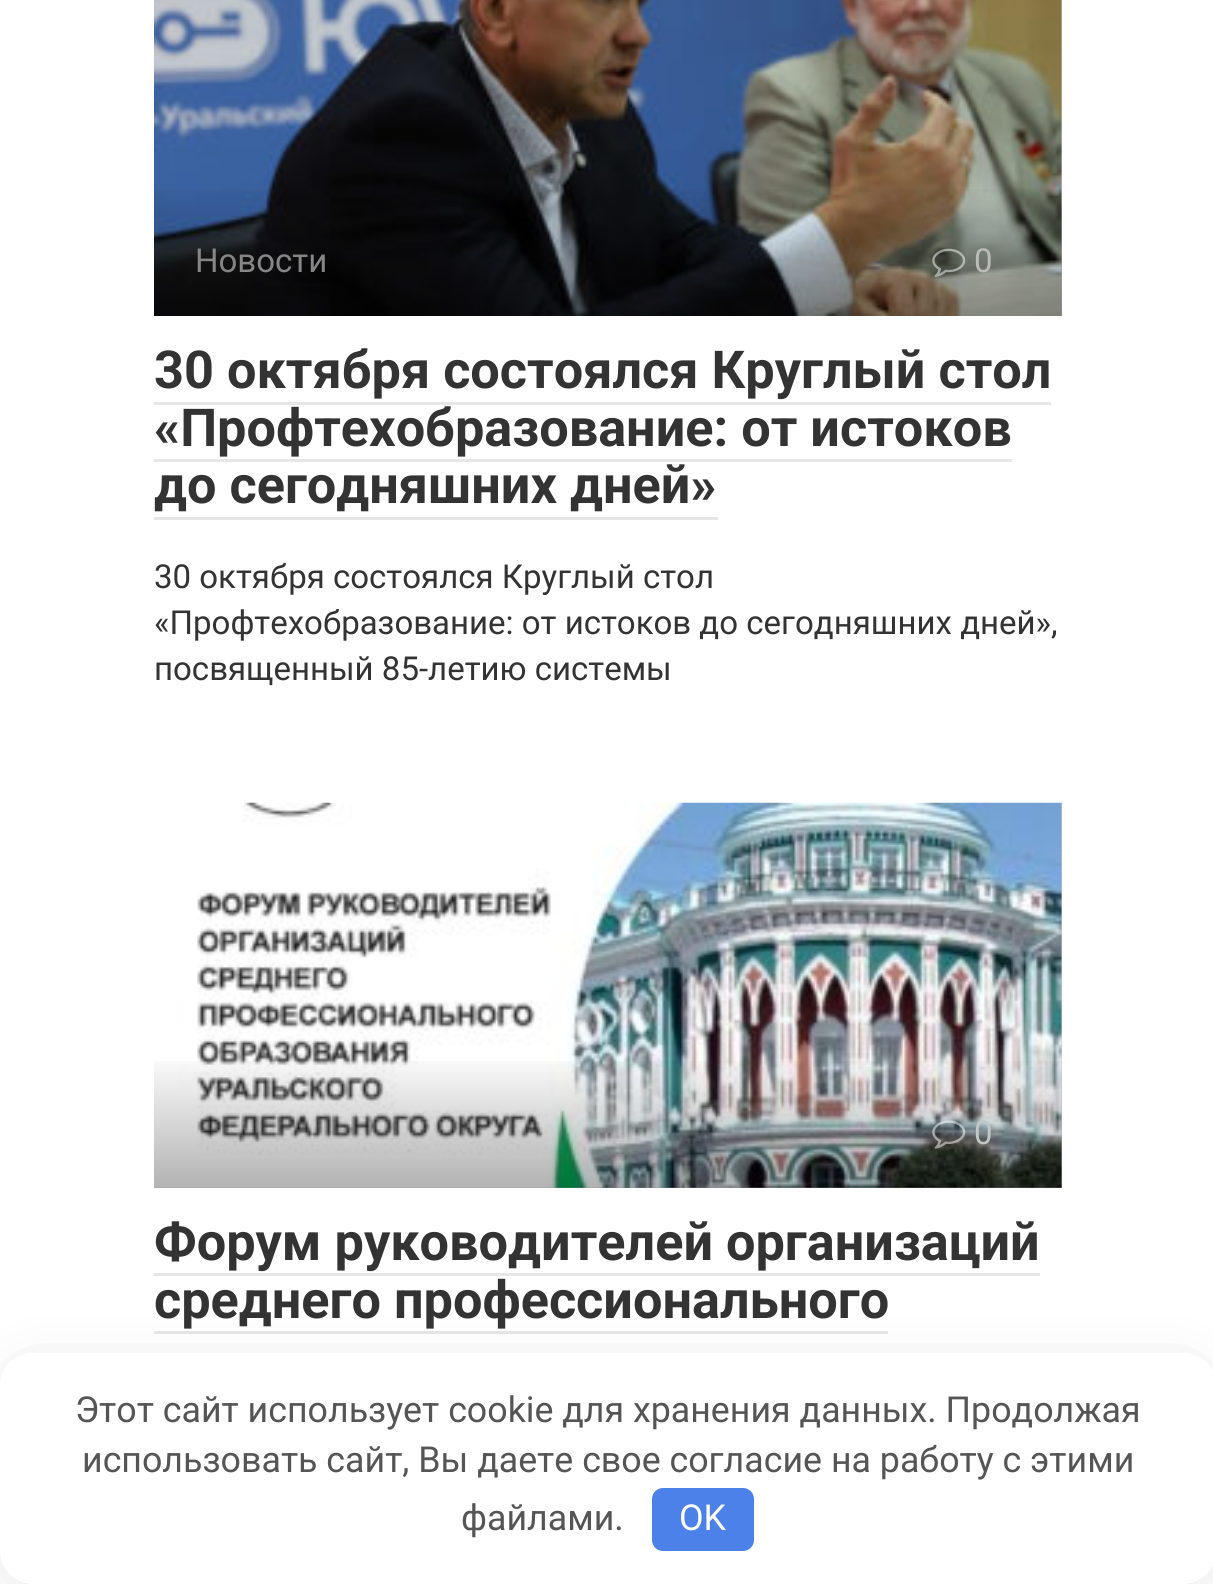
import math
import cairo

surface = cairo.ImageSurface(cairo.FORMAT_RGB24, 1213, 1584)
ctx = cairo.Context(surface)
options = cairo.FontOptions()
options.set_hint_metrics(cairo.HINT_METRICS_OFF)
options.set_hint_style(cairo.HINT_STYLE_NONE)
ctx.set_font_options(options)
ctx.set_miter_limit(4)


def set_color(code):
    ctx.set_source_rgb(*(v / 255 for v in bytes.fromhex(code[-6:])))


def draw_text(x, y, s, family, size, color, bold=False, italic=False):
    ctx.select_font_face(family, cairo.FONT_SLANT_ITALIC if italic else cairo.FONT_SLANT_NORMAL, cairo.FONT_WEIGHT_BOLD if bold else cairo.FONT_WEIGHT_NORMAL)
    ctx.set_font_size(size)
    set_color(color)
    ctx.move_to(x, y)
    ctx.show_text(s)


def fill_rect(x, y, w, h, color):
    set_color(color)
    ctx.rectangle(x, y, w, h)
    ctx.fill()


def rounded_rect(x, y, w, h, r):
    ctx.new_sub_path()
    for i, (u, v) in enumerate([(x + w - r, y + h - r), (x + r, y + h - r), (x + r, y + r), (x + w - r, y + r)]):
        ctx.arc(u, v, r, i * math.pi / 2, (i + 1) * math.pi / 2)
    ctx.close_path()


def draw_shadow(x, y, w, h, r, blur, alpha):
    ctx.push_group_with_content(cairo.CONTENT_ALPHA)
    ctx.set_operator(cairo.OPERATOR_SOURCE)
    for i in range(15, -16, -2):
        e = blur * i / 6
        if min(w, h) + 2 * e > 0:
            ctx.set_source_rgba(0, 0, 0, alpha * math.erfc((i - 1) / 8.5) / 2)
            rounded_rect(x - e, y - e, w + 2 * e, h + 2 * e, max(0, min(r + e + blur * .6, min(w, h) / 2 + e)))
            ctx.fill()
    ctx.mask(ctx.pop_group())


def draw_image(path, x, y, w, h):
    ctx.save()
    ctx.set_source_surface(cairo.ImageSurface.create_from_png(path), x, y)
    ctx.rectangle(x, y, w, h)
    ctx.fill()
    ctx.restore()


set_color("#ffffff")
ctx.paint()
fill_rect(1061, 0, 1, 316, "#d0cbcb")
draw_image("assets/img1.png", 154, 0, 908, 316)
gradient = cairo.LinearGradient(608, 179, 608, 316)
gradient.add_color_stop_rgba(0, 0, 0, 0, 0)
gradient.add_color_stop_rgba(1, 0, 0, 0, 0.3)
ctx.set_source(gradient)
ctx.rectangle(154, 189, 908, 127)
ctx.fill()
draw_text(195, 272, "Новости", "Roboto", 33, "#868687")
draw_image("assets/img2.png", 932, 248, 34, 29)
draw_text(974, 272, "0", "Roboto", 33, "#b9bcb8")
draw_text(154, 388, "30 октября состоялся Круглый стол", "Roboto", 52.25, "#333333", bold=True)
draw_text(154, 446, "«Профтехобразование: от истоков", "Roboto", 52.25, "#333333", bold=True)
fill_rect(154, 402, 897, 3, "#e6e6e6")
draw_text(154, 503, "до сегодняшних дней»", "Roboto", 52.25, "#333333", bold=True)
fill_rect(154, 459, 858, 3, "#e6e6e6")
fill_rect(154, 517, 564, 3, "#e6e6e6")
draw_text(154, 588, "30 октября состоялся Круглый стол", "Roboto", 33, "#333333")
draw_text(154, 634, "«Профтехобразование: от истоков до сегодняшних дней»,", "Roboto", 33, "#333333")
draw_text(154, 680, "посвященный 85-летию системы", "Roboto", 33, "#333333")
fill_rect(154, 803, 908, 385, "#d0cbcb")
draw_image("assets/img3.png", 154, 802, 908, 386)
gradient = cairo.LinearGradient(608, 1051, 608, 1188)
gradient.add_color_stop_rgba(0, 0, 0, 0, 0)
gradient.add_color_stop_rgba(1, 0, 0, 0, 0.3)
ctx.set_source(gradient)
ctx.rectangle(154, 1061, 908, 127)
ctx.fill()
draw_image("assets/img4.png", 932, 1120, 34, 29)
draw_text(974, 1144, "0", "Roboto", 33, "#c1c6c7")
draw_text(154, 1260, "Форум руководителей организаций", "Roboto", 52.25, "#333333", bold=True)
fill_rect(154, 1273, 886, 3, "#e6e6e6")
draw_text(154, 1318, "среднего профессионального", "Roboto", 52.25, "#333333", bold=True)
fill_rect(154, 1331, 734, 3, "#e6e6e6")
set_color("#292c38")
draw_shadow(14, 1375, 1188, 204, 19, 27.5, 0.2)
set_color("#ffffff")
rounded_rect(0, 1353, 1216, 231, 33)
ctx.fill()
draw_text(75, 1422, "Этот сайт использует cookie для хранения данных. Продолжая", "Roboto", 35.75, "#555555")
draw_text(82, 1472, "использовать сайт, Вы даете свое согласие на работу с этими", "Roboto", 35.75, "#555555")
draw_text(461, 1530, "файлами.", "Roboto", 35.75, "#555555")
set_color("#4b81e8")
rounded_rect(652, 1488, 102, 63, 11)
ctx.fill()
draw_text(679, 1530, "OK", "Roboto", 35.75, "#ffffff")
surface.write_to_png("output.png")
